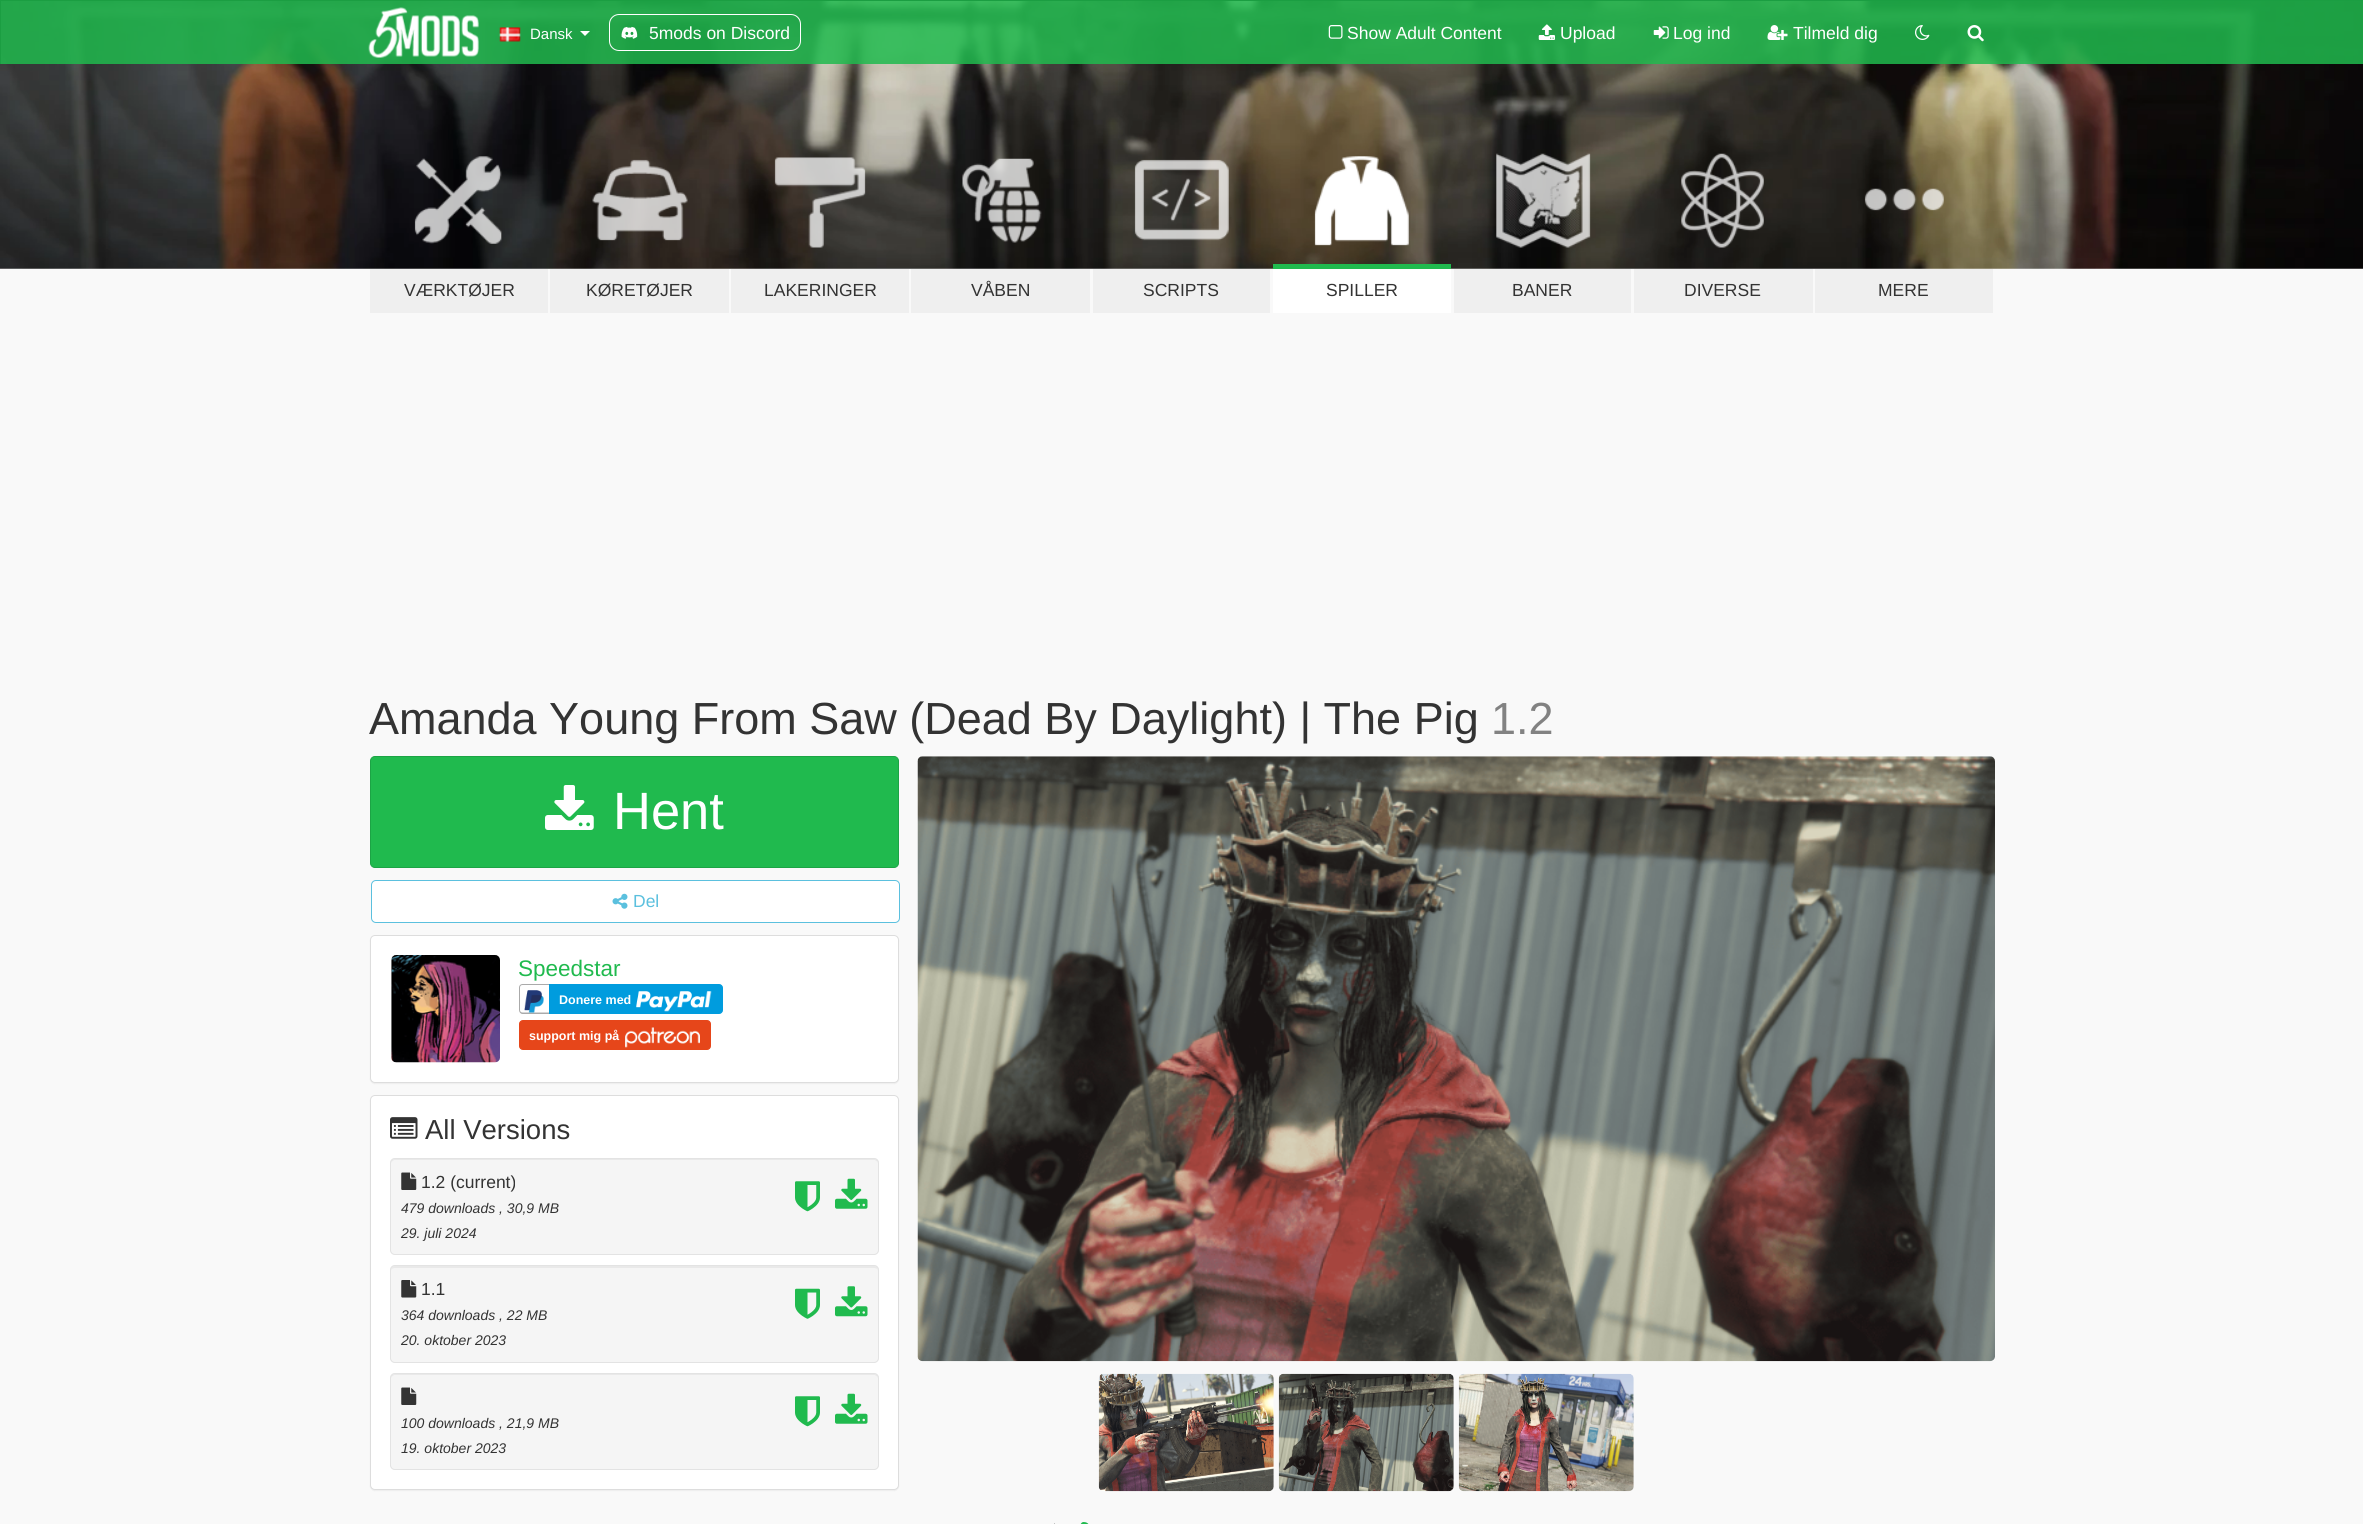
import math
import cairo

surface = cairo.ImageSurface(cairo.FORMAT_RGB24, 2363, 1524)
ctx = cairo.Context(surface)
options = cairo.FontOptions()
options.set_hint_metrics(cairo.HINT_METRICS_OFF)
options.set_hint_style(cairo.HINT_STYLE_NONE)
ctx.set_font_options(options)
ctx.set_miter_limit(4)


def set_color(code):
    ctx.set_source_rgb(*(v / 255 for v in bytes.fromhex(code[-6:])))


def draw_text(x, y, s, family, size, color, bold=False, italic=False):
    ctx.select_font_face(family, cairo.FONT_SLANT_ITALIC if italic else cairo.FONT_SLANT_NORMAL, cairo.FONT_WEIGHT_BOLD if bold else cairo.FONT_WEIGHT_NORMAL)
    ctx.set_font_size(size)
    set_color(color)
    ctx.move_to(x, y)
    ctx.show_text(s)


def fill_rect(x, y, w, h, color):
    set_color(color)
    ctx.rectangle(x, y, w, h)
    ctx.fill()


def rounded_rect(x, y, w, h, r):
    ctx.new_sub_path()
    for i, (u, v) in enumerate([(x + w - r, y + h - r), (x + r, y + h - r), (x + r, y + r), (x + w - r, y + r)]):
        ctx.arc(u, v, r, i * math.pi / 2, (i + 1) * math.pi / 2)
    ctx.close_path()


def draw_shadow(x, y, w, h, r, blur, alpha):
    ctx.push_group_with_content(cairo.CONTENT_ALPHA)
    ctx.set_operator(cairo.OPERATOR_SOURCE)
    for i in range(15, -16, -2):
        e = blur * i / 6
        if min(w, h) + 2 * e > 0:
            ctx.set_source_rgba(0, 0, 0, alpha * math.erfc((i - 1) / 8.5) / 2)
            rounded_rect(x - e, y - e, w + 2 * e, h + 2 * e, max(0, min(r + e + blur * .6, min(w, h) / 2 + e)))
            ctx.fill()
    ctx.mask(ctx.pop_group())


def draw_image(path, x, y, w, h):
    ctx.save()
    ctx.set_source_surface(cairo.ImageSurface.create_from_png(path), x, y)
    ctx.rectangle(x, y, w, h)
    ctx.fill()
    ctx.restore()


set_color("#f9f9f9")
ctx.paint()
draw_image("assets/img10.png", 0, 1, 2363, 268)
ctx.set_source_rgba(0.125, 0.729, 0.306, 0.85)
ctx.rectangle(1, 1, 2362, 63)
ctx.fill()
fill_rect(0, 0, 2363, 1, "#1b9e42")
fill_rect(0, 0, 1, 64, "#1b9e42")
draw_image("assets/img1.png", 368, 7, 111, 51)
draw_image("assets/img2.png", 499, 27, 22, 15)
draw_text(530, 39, "Dansk", "Liberation Sans", 15, "#ffffff")
ctx.new_path()
ctx.move_to(580, 31)
ctx.line_to(590, 31)
ctx.line_to(585, 36)
ctx.close_path()
ctx.fill()
rounded_rect(609.5, 14.5, 191, 36, 9.5)
ctx.set_line_width(1)
ctx.stroke()
draw_image("assets/img3.png", 621, 26, 17, 13)
draw_text(649, 39, "5mods on Discord", "Liberation Sans", 17.5, "#ffffff")
draw_image("assets/img4.png", 1328, 25, 15, 14)
draw_text(1347, 39, "Show Adult Content", "Liberation Sans", 17.5, "#ffffff")
draw_image("assets/img5.png", 1538, 24, 17, 16)
draw_text(1560, 39, "Upload", "Liberation Sans", 17.5, "#ffffff")
draw_image("assets/img6.png", 1653, 26, 16, 13)
draw_text(1673, 39, "Log ind", "Liberation Sans", 17.5, "#ffffff")
draw_image("assets/img7.png", 1767, 25, 21, 15)
draw_text(1793, 39, "Tilmeld dig", "Liberation Sans", 17.5, "#ffffff")
draw_image("assets/img8.png", 1915, 25, 15, 15)
draw_image("assets/img9.png", 1967, 25, 17, 17)
draw_image("assets/img11.png", 414, 156, 88, 88)
fill_rect(370, 269, 178, 44, "#efefef")
draw_text(404, 296, "VÆRKTØJER", "Liberation Sans", 17.5, "#333333")
draw_image("assets/img12.png", 592, 159, 96, 82)
fill_rect(550, 269, 179, 44, "#efefef")
draw_text(586, 296, "KØRETØJER", "Liberation Sans", 17.5, "#333333")
draw_image("assets/img13.png", 774, 157, 92, 91)
fill_rect(731, 269, 178, 44, "#efefef")
draw_text(764, 296, "LAKERINGER", "Liberation Sans", 17.5, "#333333")
draw_image("assets/img14.png", 962, 158, 80, 85)
fill_rect(911, 269, 179, 44, "#efefef")
draw_text(971, 296, "VÅBEN", "Liberation Sans", 17.5, "#333333")
draw_image("assets/img15.png", 1134, 159, 95, 82)
fill_rect(1093, 269, 177, 44, "#efefef")
draw_text(1143, 296, "SCRIPTS", "Liberation Sans", 17.5, "#333333")
draw_image("assets/img16.png", 1314, 156, 95, 90)
fill_rect(1273, 264, 178, 5, "#20ba4e")
fill_rect(1273, 269, 178, 44, "#ffffff")
draw_text(1326, 296, "SPILLER", "Liberation Sans", 17.5, "#333333")
draw_image("assets/img17.png", 1496, 153, 95, 95)
fill_rect(1454, 269, 177, 44, "#efefef")
draw_text(1512, 296, "BANER", "Liberation Sans", 17.5, "#333333")
draw_image("assets/img18.png", 1681, 153, 83, 95)
fill_rect(1634, 269, 179, 44, "#efefef")
draw_text(1684, 296, "DIVERSE", "Liberation Sans", 17.5, "#333333")
draw_image("assets/img19.png", 1864, 188, 80, 23)
fill_rect(1815, 269, 178, 44, "#efefef")
draw_text(1878, 296, "MERE", "Liberation Sans", 17.5, "#333333")
draw_text(369, 734, "Amanda Young From Saw (Dead By Daylight) | The Pig", "Liberation Sans", 45, "#333333")
draw_text(1491, 734, "1.2", "Liberation Sans", 45, "#828282")
set_color("#20ba4e")
rounded_rect(370.5, 756.5, 528, 111, 4.5)
ctx.fill_preserve()
set_color("#1ca445")
ctx.stroke()
draw_image("assets/img20.png", 545, 785, 49, 45)
draw_text(613, 829, "Hent", "Liberation Sans", 52.5, "#ffffff")
rounded_rect(371.5, 880.5, 528, 42, 4.5)
ctx.fill_preserve()
set_color("#5bc0de")
ctx.stroke()
draw_image("assets/img21.png", 612, 893, 16, 16)
draw_text(633, 907, "Del", "Liberation Sans", 17.5, "#5bc0de")
set_color("#000000")
draw_shadow(370, 936, 529, 148, 5, 0.5, 0.05)
set_color("#ffffff")
rounded_rect(370.5, 935.5, 528, 147, 4.5)
ctx.fill_preserve()
set_color("#dddddd")
ctx.stroke()
draw_image("assets/img22.png", 391, 955, 109, 108)
draw_text(518, 976, "Speedstar", "Liberation Sans", 22.5, "#20ba4e")
set_color("#aaaaaa")
ctx.set_fill_rule(cairo.FILL_RULE_EVEN_ODD)
ctx.new_path()
ctx.move_to(522.5, 984)
ctx.line_to(549, 984)
ctx.line_to(549, 1014)
ctx.line_to(522.5, 1014)
ctx.curve_to(520.5, 1014, 519, 1012, 519, 1010)
ctx.line_to(519, 987.5)
ctx.curve_to(519, 985.5, 520.5, 984, 522.5, 984)
ctx.close_path()
ctx.move_to(522.5, 985)
ctx.line_to(549, 985)
ctx.line_to(549, 1012.5)
ctx.line_to(522.5, 1012.5)
ctx.curve_to(521, 1012.5, 520, 1011.5, 520, 1010)
ctx.line_to(520, 987.5)
ctx.curve_to(520, 986, 521, 985, 522.5, 985)
ctx.close_path()
ctx.fill()
draw_image("assets/img23.png", 524, 990, 20, 23)
set_color("#009cde")
ctx.new_path()
ctx.move_to(549.5, 984.5)
ctx.line_to(719, 984.5)
ctx.curve_to(721, 984.5, 722.5, 986, 722.5, 988)
ctx.line_to(722.5, 1010)
ctx.curve_to(722.5, 1012, 721, 1013.5, 719, 1013.5)
ctx.line_to(549.5, 1013.5)
ctx.close_path()
ctx.fill_preserve()
ctx.stroke()
draw_text(559, 1004, "Donere med", "Liberation Sans", 12.5, "#ffffff", bold=True)
draw_image("assets/img24.png", 636, 991, 76, 21)
set_color("#e6461a")
rounded_rect(519.5, 1020.5, 191, 29, 3.5)
ctx.fill_preserve()
ctx.stroke()
draw_text(529, 1040, "support mig på", "Liberation Sans", 12.5, "#ffffff", bold=True)
draw_image("assets/img25.png", 625, 1027, 75, 21)
set_color("#000000")
draw_shadow(370, 1096, 529, 395, 5, 0.5, 0.05)
set_color("#ffffff")
rounded_rect(370.5, 1095.5, 528, 394, 4.5)
ctx.fill_preserve()
set_color("#dddddd")
ctx.stroke()
draw_image("assets/img26.png", 390, 1117, 28, 22)
draw_text(425, 1139, "All Versions", "Liberation Sans", 27.5, "#333333")
set_color("#f5f5f5")
rounded_rect(390, 1158, 489, 97, 5)
ctx.fill()
set_color("#e9e9e9")
ctx.set_fill_rule(cairo.FILL_RULE_WINDING)
ctx.new_path()
ctx.move_to(395, 1160)
ctx.line_to(874, 1160)
ctx.curve_to(876, 1160, 878, 1162, 878, 1164)
ctx.curve_to(878, 1161, 877, 1159, 874, 1159)
ctx.line_to(395, 1159)
ctx.curve_to(392, 1159, 391, 1161, 391, 1164)
ctx.curve_to(391, 1162, 393, 1160, 395, 1160)
ctx.close_path()
ctx.fill()
rounded_rect(390.5, 1158.5, 488, 96, 4.5)
set_color("#e3e3e3")
ctx.stroke()
draw_image("assets/img27.png", 401, 1172, 16, 18)
draw_text(421, 1188, "1.2 (current)", "Liberation Sans", 17.5, "#333333")
draw_text(401, 1213, "479 downloads , 30,9 MB", "Liberation Sans", 14, "#333333", italic=True)
draw_text(401, 1238, "29. juli 2024", "Liberation Sans", 14, "#333333", italic=True)
draw_image("assets/img28.png", 795, 1181, 25, 31)
draw_image("assets/img29.png", 835, 1178, 33, 31)
set_color("#f5f5f5")
rounded_rect(390, 1265, 489, 98, 5)
ctx.fill()
set_color("#e9e9e9")
ctx.new_path()
ctx.move_to(395, 1268)
ctx.line_to(874, 1268)
ctx.curve_to(876, 1268, 878, 1269, 878, 1271)
ctx.curve_to(878, 1268, 877, 1266, 874, 1266)
ctx.line_to(395, 1266)
ctx.curve_to(392, 1266, 391, 1268, 391, 1271)
ctx.curve_to(391, 1269, 393, 1268, 395, 1268)
ctx.close_path()
ctx.fill()
rounded_rect(390.5, 1265.5, 488, 97, 4.5)
set_color("#e3e3e3")
ctx.stroke()
draw_image("assets/img30.png", 401, 1280, 16, 18)
draw_text(421, 1295, "1.1", "Liberation Sans", 17.5, "#333333")
draw_text(401, 1320, "364 downloads , 22 MB", "Liberation Sans", 14, "#333333", italic=True)
draw_text(401, 1345, "20. oktober 2023", "Liberation Sans", 14, "#333333", italic=True)
draw_image("assets/img31.png", 795, 1288, 25, 31)
draw_image("assets/img32.png", 835, 1286, 33, 31)
set_color("#f5f5f5")
rounded_rect(390, 1373, 489, 97, 5)
ctx.fill()
set_color("#e9e9e9")
ctx.new_path()
ctx.move_to(395, 1375)
ctx.line_to(874, 1375)
ctx.curve_to(876, 1375, 878, 1377, 878, 1379)
ctx.curve_to(878, 1376, 877, 1374, 874, 1374)
ctx.line_to(395, 1374)
ctx.curve_to(392, 1374, 391, 1376, 391, 1379)
ctx.curve_to(391, 1377, 393, 1375, 395, 1375)
ctx.close_path()
ctx.fill()
rounded_rect(390.5, 1373.5, 488, 96, 4.5)
set_color("#e3e3e3")
ctx.stroke()
draw_image("assets/img28.png", 795, 1396, 25, 31)
draw_image("assets/img29.png", 835, 1393, 33, 31)
draw_image("assets/img27.png", 401, 1387, 16, 18)
draw_text(401, 1428, "100 downloads , 21,9 MB", "Liberation Sans", 14, "#333333", italic=True)
draw_text(401, 1453, "19. oktober 2023", "Liberation Sans", 14, "#333333", italic=True)
draw_image("assets/img33.png", 917, 756, 1078, 606)
draw_image("assets/img34.png", 1098, 1373, 176, 119)
draw_image("assets/img35.png", 1278, 1373, 176, 119)
draw_image("assets/img36.png", 1458, 1373, 176, 119)
fill_rect(1054, 1523, 1, 1, "#c2c2c2")
draw_image("assets/img37.png", 1080, 1522, 9, 2)
surface.write_to_png("output.png")
